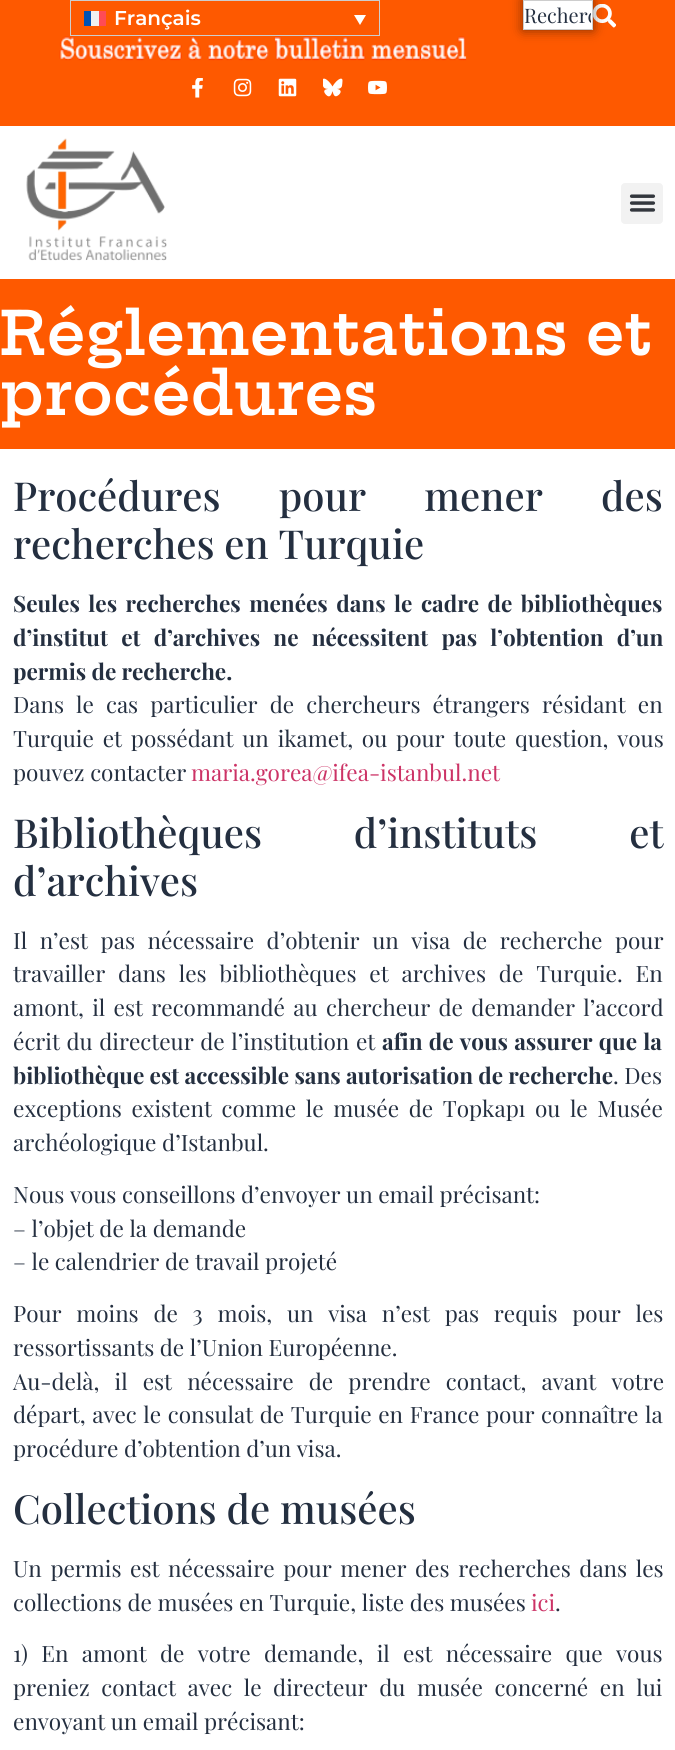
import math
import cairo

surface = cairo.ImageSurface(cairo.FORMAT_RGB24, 675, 1750)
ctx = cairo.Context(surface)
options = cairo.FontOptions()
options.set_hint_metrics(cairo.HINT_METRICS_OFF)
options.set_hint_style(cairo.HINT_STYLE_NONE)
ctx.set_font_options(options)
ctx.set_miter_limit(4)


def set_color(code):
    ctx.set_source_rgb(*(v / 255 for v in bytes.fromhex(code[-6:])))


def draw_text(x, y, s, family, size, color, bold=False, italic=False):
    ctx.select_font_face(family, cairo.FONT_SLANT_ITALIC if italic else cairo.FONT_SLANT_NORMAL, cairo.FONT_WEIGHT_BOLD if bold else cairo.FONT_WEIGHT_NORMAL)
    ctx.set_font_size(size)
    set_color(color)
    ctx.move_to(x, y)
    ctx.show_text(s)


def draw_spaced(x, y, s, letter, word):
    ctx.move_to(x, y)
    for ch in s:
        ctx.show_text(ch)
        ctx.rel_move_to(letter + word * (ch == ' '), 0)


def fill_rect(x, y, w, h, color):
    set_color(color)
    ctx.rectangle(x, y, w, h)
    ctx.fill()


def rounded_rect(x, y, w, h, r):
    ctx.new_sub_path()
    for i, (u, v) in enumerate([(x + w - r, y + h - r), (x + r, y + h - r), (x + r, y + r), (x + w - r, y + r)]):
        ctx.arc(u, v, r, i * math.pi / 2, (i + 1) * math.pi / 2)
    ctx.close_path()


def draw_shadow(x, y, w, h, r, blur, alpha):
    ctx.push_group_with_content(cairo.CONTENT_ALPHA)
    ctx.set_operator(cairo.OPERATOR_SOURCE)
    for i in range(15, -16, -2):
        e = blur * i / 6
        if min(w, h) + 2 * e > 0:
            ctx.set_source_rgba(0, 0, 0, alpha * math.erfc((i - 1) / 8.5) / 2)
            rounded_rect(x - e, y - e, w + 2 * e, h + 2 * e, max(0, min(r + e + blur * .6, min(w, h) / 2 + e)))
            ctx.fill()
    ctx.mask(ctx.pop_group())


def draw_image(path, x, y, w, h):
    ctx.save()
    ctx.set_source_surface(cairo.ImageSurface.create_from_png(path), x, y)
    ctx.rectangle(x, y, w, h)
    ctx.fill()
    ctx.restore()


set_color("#ffffff")
ctx.paint()
fill_rect(0, 0, 675, 126, "#fe5900")
ctx.rectangle(70.5, 0.5, 309, 35)
set_color("#cdcdcd")
ctx.set_line_width(1)
ctx.stroke()
fill_rect(84, 11, 7, 15, "#0052b4")
fill_rect(91, 11, 8, 15, "#f0f0f0")
fill_rect(99, 11, 7, 15, "#ff4b55")
draw_text(114, 25, "Français", "Montserrat SemiBold", 20, "#ffffff")
ctx.new_path()
ctx.move_to(354, 15)
ctx.line_to(366, 15)
ctx.line_to(360, 25)
ctx.close_path()
ctx.fill()
draw_image("assets/img1.png", 593, 4, 23, 24)
set_color("#000000")
draw_shadow(523, 0, 70, 30, 0, 6, 0.5)
set_color("#ffffff")
ctx.rectangle(523.5, 0.5, 69, 29)
ctx.fill_preserve()
set_color("#cdcdcd")
ctx.stroke()
ctx.save()
ctx.rectangle(524, 3, 67, 26)
ctx.clip()
draw_text(524, 23, "Recherc", "Playfair Display", 20, "#242f40")
ctx.restore()
draw_image("assets/img2.png", 59, 36, 408, 25)
draw_image("assets/img3.png", 192, 78, 11, 20)
draw_image("assets/img4.png", 233, 78, 19, 19)
draw_image("assets/img5.png", 278, 78, 19, 19)
draw_image("assets/img6.png", 323, 78, 20, 19)
draw_image("assets/img7.png", 368, 80, 19, 15)
draw_image("assets/img8.png", 26, 138, 141, 123)
set_color("#f2f2f2")
rounded_rect(621, 183, 42, 41, 4)
ctx.fill()
draw_image("assets/img9.png", 629, 194, 27, 18)
fill_rect(0, 279, 675, 170, "#fe5900")
draw_text(0, 355, "Réglementations et", "Hepta Slab SemiBold", 60, "#ffffff")
draw_text(0, 415, "procédures", "Hepta Slab SemiBold", 60, "#ffffff")
ctx.select_font_face("Playfair Display Medium")
ctx.set_font_size(40)
set_color("#242f40")
draw_spaced(13, 511, "Procédures pour mener des", 0, 48.5)
draw_text(13, 559, "recherches en Turquie", "Playfair Display Medium", 40, "#242f40")
ctx.select_font_face("Playfair Display", cairo.FONT_SLANT_NORMAL, cairo.FONT_WEIGHT_BOLD)
ctx.set_font_size(22.5)
draw_spaced(13, 612, "Seules les recherches menées dans le cadre de bibliothèques", 0, 3.25)
draw_spaced(13, 646, "d’institut et d’archives ne nécessitent pas l’obtention d’un", 0, 8)
draw_text(13, 680, "permis de recherche.", "Playfair Display", 22.5, "#242f40", bold=True)
ctx.select_font_face("Playfair Display")
draw_spaced(13, 713, "Dans le cas particulier de chercheurs étrangers résidant en", 0, 6.5)
draw_spaced(13, 747, "Turquie et possédant un ikamet, ou pour toute question, vous", 0, 3.25)
draw_text(13, 781, "pouvez contacter", "Playfair Display", 22.5, "#242f40")
draw_text(191, 781, "maria.gorea@ifea-istanbul.net", "Playfair Display", 22.5, "#cc3366")
ctx.select_font_face("Playfair Display Medium")
ctx.set_font_size(40)
set_color("#242f40")
draw_spaced(13, 848, "Bibliothèques d’instituts et", 0, 82)
draw_text(13, 896, "d’archives", "Playfair Display Medium", 40, "#242f40")
ctx.select_font_face("Playfair Display")
ctx.set_font_size(22.5)
draw_spaced(13, 949, "Il n’est pas nécessaire d’obtenir un visa de recherche pour", 0, 7)
draw_spaced(13, 982, "travailler dans les bibliothèques et archives de Turquie. En", 0, 7.25)
draw_spaced(13, 1016, "amont, il est recommandé au chercheur de demander l’accord", 0, 2.75)
draw_spaced(13, 1050, "écrit du directeur de l’institution et", 0, 1)
ctx.select_font_face("Playfair Display", cairo.FONT_SLANT_NORMAL, cairo.FONT_WEIGHT_BOLD)
draw_spaced(382, 1050, "afin de vous assurer que la", 0, 1)
draw_text(13, 1084, "bibliothèque est accessible sans autorisation de recherche", "Playfair Display", 22.5, "#242f40", bold=True)
draw_text(613, 1084, ". Des", "Playfair Display", 22.5, "#242f40")
draw_spaced(13, 1117, "exceptions existent comme le musée de Topkapı ou le Musée", 0, 4)
draw_text(13, 1151, "archéologique d’Istanbul.", "Playfair Display", 22.5, "#242f40")
draw_text(13, 1203, "Nous vous conseillons d’envoyer un email précisant:", "Playfair Display", 22.5, "#242f40")
draw_text(13, 1237, "– l’objet de la demande", "Playfair Display", 22.5, "#242f40")
draw_text(13, 1270, "– le calendrier de travail projeté", "Playfair Display", 22.5, "#242f40")
draw_spaced(13, 1322, "Pour moins de 3 mois, un visa n’est pas requis pour les", 0, 9.1)
draw_text(13, 1356, "ressortissants de l’Union Européenne.", "Playfair Display", 22.5, "#242f40")
draw_spaced(13, 1390, "Au-delà, il est nécessaire de prendre contact, avant votre", 0, 9.5)
draw_spaced(13, 1423, "départ, avec le consulat de Turquie en France pour connaître la", 0, 1)
draw_text(13, 1457, "procédure d’obtention d’un visa.", "Playfair Display", 22.5, "#242f40")
draw_text(13, 1524, "Collections de musées", "Playfair Display Medium", 40, "#242f40")
ctx.select_font_face("Playfair Display")
ctx.set_font_size(22.5)
draw_spaced(13, 1577, "Un permis est nécessaire pour mener des recherches dans les", 0, 3)
draw_text(13, 1611, "collections de musées en Turquie, liste des musées", "Playfair Display", 22.5, "#242f40")
draw_text(531, 1611, "ici", "Playfair Display", 22.5, "#cc3366")
draw_text(555, 1611, ".", "Playfair Display", 22.5, "#242f40")
draw_spaced(13, 1662, "1) En amont de votre demande, il est nécessaire que vous", 0, 7.75)
draw_spaced(13, 1696, "preniez contact avec le directeur du musée concerné en lui", 0, 6)
draw_text(13, 1730, "envoyant un email précisant:", "Playfair Display", 22.5, "#242f40")
surface.write_to_png("output.png")
